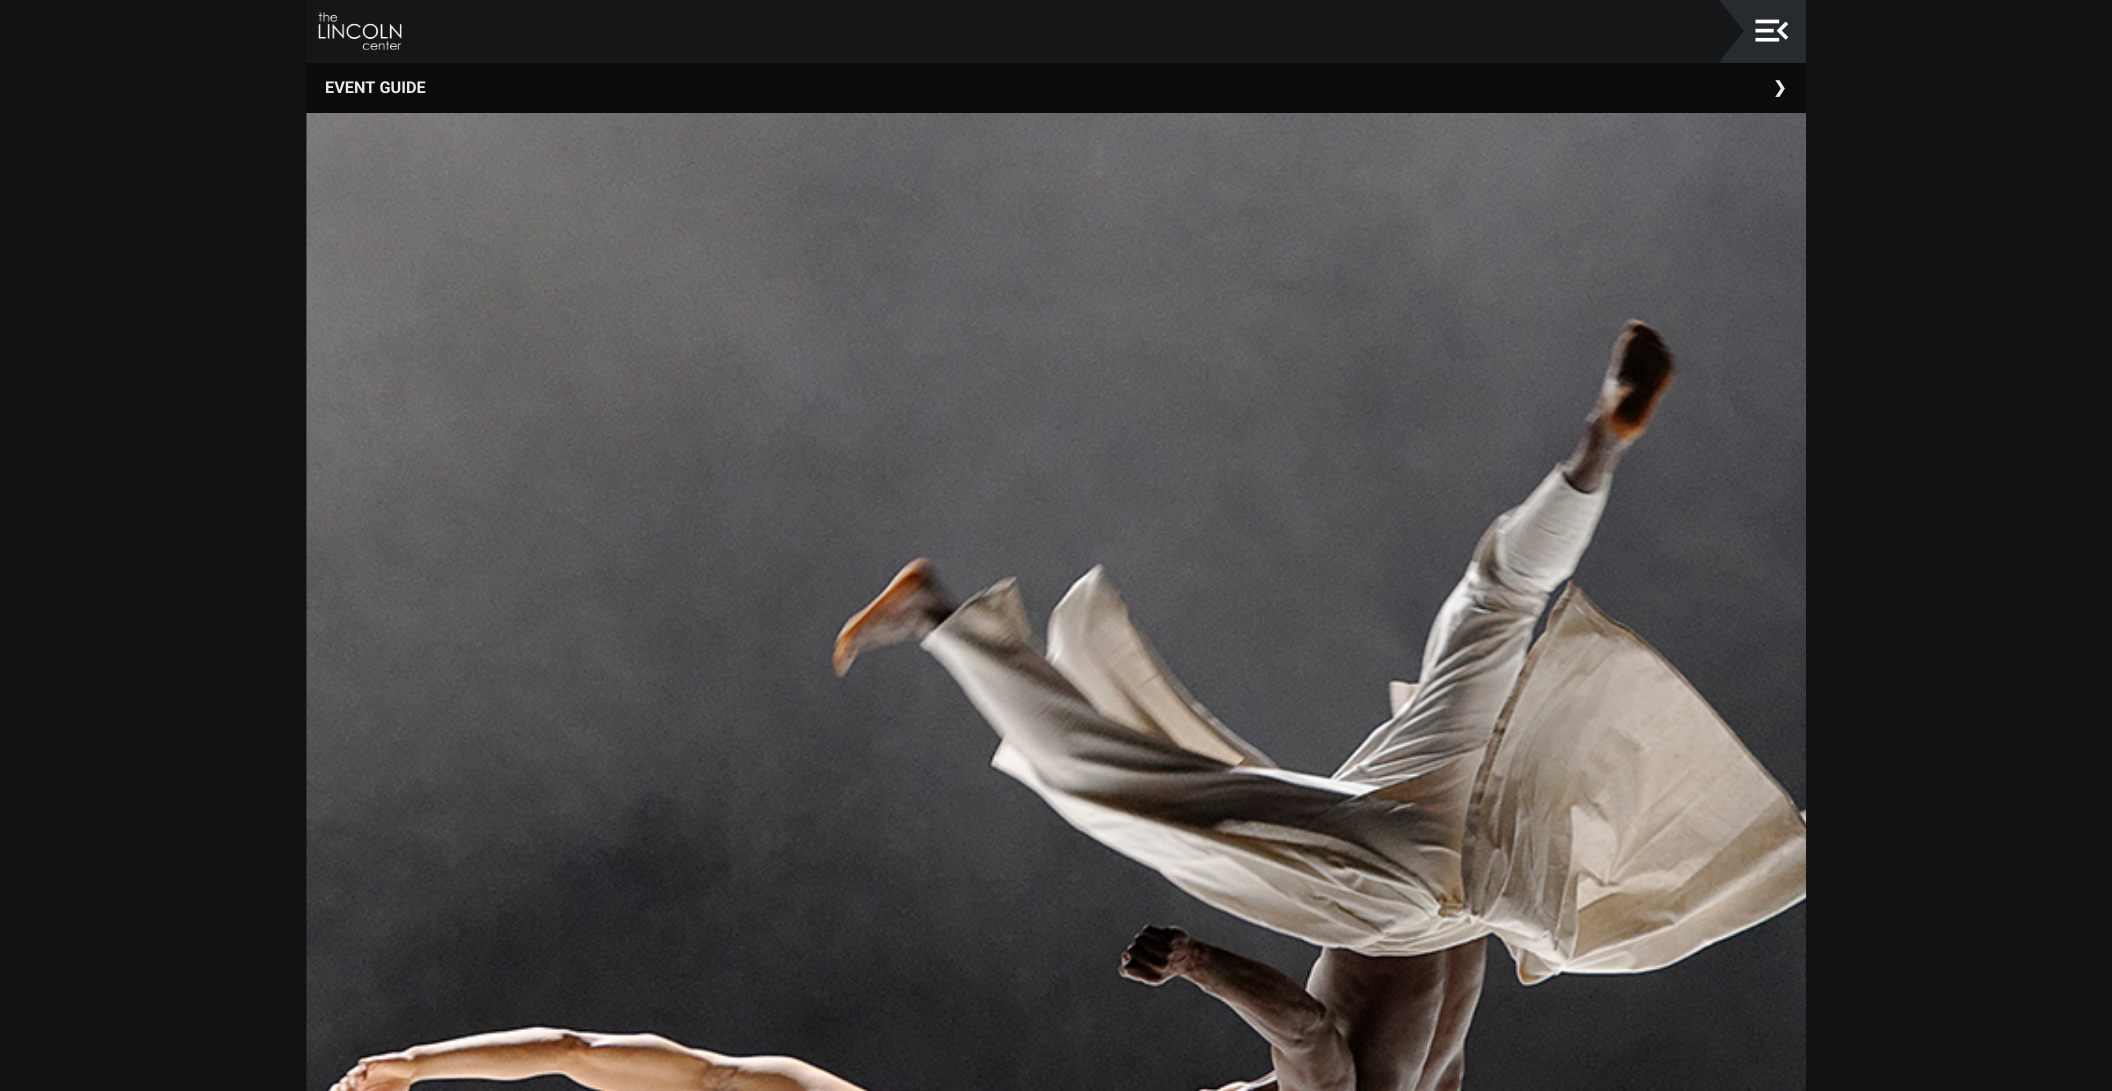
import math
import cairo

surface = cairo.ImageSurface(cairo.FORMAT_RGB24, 2112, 1091)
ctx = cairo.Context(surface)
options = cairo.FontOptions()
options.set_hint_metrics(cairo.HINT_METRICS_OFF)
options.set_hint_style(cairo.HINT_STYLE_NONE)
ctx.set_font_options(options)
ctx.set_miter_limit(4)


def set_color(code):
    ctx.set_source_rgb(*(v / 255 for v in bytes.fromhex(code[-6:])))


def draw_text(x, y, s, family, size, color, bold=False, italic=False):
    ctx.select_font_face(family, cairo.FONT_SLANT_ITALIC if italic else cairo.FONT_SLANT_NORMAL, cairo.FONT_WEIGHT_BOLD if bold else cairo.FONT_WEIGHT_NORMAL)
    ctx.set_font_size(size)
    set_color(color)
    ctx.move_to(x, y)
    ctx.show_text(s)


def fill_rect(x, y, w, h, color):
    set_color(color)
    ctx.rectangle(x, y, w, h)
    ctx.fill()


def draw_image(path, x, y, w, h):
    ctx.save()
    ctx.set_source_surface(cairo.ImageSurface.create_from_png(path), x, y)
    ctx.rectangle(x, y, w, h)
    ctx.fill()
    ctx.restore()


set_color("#0f1112")
ctx.paint()
fill_rect(306, 0, 1413, 63, "#141618")
draw_image("assets/img1.png", 318, 12, 84, 38)
fill_rect(1719, 0, 87, 63, "#262b2e")
set_color("#141618")
ctx.new_path()
ctx.move_to(1719, 62)
ctx.line_to(1719, 0)
ctx.line_to(1744, 31)
ctx.close_path()
ctx.fill()
draw_image("assets/img2.png", 1755, 19, 34, 23)
draw_image("assets/img3.png", 306, 112, 1501, 979)
fill_rect(306, 63, 1500, 50, "#0a0c0c")
draw_text(325, 93, "EVENT GUIDE", "Roboto", 16.25, "#eaeaea", bold=True)
draw_text(1773, 93, "❯", "DejaVu Sans", 16.25, "#eaeaea", bold=True)
surface.write_to_png("output.png")
